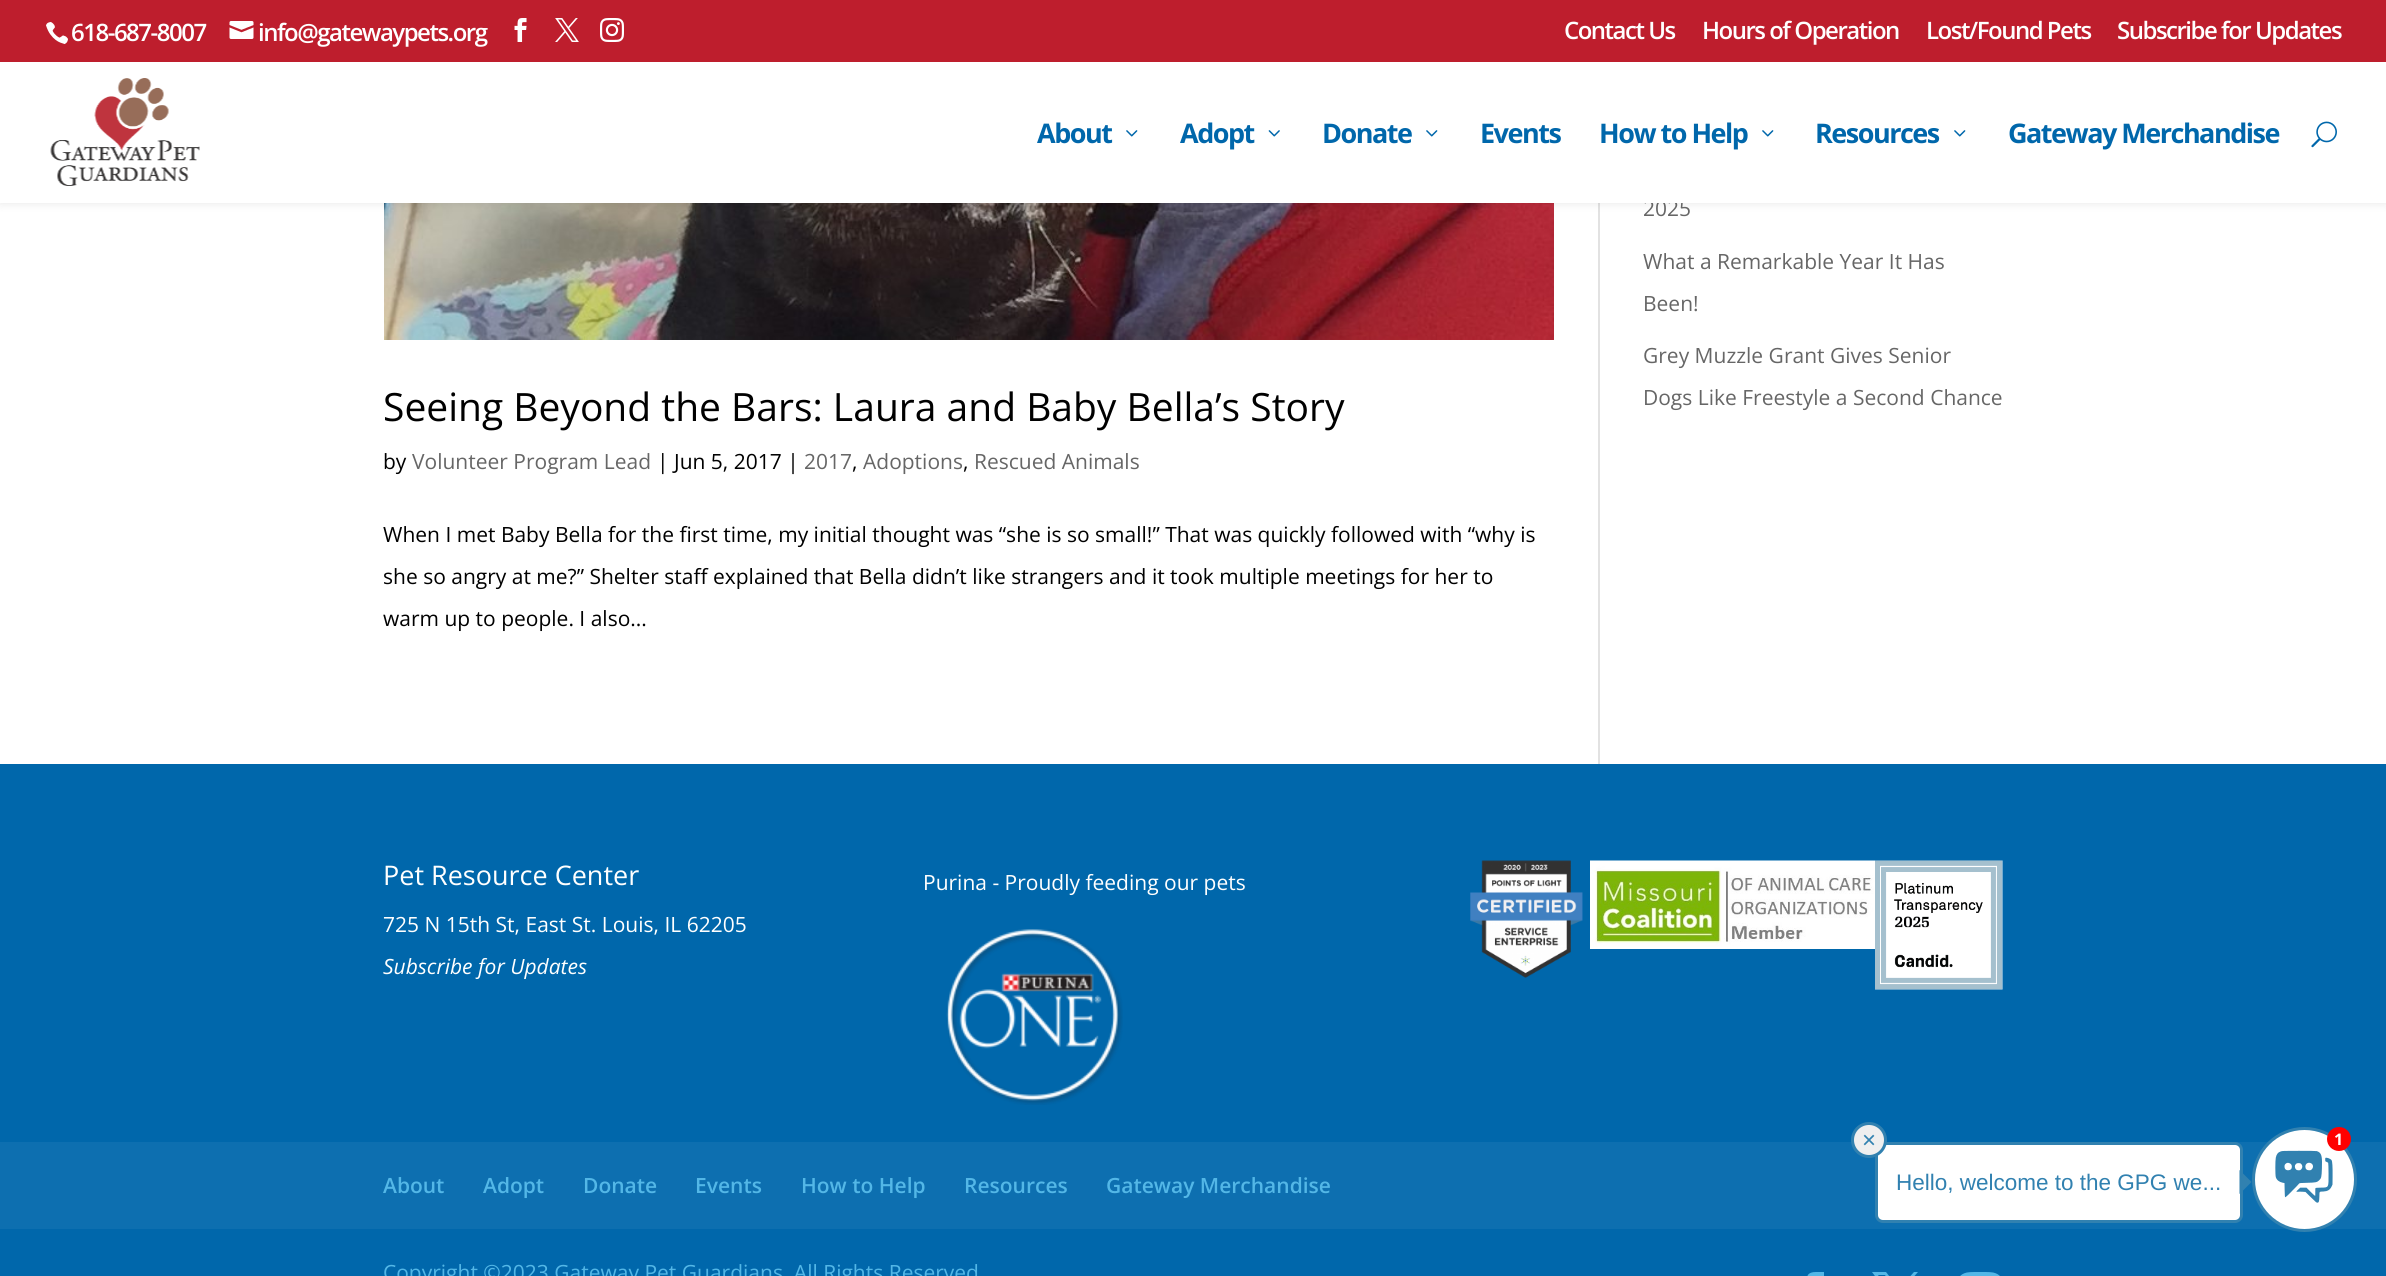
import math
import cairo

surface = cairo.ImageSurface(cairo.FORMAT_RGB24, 2386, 1276)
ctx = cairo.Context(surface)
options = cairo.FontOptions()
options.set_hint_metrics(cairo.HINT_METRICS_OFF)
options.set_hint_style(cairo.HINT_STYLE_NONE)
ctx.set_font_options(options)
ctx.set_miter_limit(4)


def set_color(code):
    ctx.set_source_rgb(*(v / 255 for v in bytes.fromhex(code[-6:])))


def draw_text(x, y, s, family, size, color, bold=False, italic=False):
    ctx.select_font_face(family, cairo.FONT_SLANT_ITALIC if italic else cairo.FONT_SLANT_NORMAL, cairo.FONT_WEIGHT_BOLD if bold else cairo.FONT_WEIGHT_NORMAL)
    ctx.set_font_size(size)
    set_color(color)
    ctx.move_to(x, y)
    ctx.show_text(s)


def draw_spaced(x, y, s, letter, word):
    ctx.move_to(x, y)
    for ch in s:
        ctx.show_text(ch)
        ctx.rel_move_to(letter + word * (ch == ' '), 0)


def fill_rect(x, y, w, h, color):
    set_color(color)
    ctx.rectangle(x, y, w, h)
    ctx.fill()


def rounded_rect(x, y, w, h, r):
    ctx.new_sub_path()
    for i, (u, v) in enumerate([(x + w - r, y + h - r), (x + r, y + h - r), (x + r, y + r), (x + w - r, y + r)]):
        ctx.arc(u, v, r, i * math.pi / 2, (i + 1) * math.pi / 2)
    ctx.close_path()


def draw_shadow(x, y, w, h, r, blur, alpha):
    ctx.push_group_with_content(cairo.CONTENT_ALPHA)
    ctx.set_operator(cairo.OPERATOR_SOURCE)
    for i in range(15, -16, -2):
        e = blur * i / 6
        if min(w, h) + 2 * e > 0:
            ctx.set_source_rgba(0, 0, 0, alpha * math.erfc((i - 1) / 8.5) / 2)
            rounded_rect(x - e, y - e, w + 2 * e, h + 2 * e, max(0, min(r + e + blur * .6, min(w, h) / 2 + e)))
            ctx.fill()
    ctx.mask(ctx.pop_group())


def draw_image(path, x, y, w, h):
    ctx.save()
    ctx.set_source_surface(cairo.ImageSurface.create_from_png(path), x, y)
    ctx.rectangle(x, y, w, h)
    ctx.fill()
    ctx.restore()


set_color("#ffffff")
ctx.paint()
draw_image("assets/img10.png", 384, 203, 1170, 137)
fill_rect(1598, 203, 2, 561, "#e2e2e2")
set_color("#000000")
draw_shadow(0, 62, 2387, 141, 0, 5, 0.1)
fill_rect(0, 0, 2386, 62, "#be1e2d")
draw_image("assets/img1.png", 46, 22, 22, 22)
ctx.select_font_face("Open Sans SemiBold")
ctx.set_font_size(24)
set_color("#ffffff")
draw_spaced(71, 41, "618-687-8007", -1.5, 0)
draw_image("assets/img2.png", 229, 21, 25, 18)
draw_spaced(258, 41, "info@gatewaypets.org", -1.5, 0)
draw_image("assets/img3.png", 514, 18, 13, 24)
draw_image("assets/img4.png", 555, 18, 24, 24)
draw_image("assets/img5.png", 600, 18, 24, 24)
draw_spaced(1564, 39, "Contact Us", -1.5, 0)
draw_spaced(1702, 39, "Hours of Operation", -1.5, 0)
draw_spaced(1926, 39, "Lost/Found Pets", -1.5, 0)
draw_spaced(2117, 39, "Subscribe for Updates", -1.5, 0)
draw_text(1643, 216, "2025", "Open Sans", 21, "#666666")
fill_rect(0, 62, 2386, 141, "#ffffff")
draw_image("assets/img6.png", 50, 78, 150, 108)
ctx.select_font_face("Open Sans", cairo.FONT_SLANT_NORMAL, cairo.FONT_WEIGHT_BOLD)
ctx.set_font_size(27)
set_color("#0067ab")
draw_spaced(1037, 143, "About", -1.5, 0)
draw_image("assets/img7.png", 1126, 130, 12, 7)
draw_spaced(1180, 143, "Adopt", -1.5, 0)
draw_image("assets/img8.png", 1268, 130, 12, 7)
draw_spaced(1322, 143, "Donate", -1.5, 0)
draw_image("assets/img7.png", 1426, 130, 12, 7)
draw_spaced(1480, 143, "Events", -1.5, 0)
draw_spaced(1599, 143, "How to Help", -1.5, 0)
draw_image("assets/img7.png", 1762, 130, 12, 7)
draw_spaced(1815, 143, "Resources", -1.5, 0)
draw_image("assets/img7.png", 1954, 130, 12, 7)
draw_spaced(2008, 143, "Gateway Merchandise", -1.5, 0)
draw_image("assets/img9.png", 2311, 121, 26, 27)
draw_text(1643, 269, "What a Remarkable Year It Has", "Open Sans", 21, "#666666")
draw_text(1643, 311, "Been!", "Open Sans", 21, "#666666")
draw_text(1643, 363, "Grey Muzzle Grant Gives Senior", "Open Sans", 21, "#666666")
draw_text(1643, 405, "Dogs Like Freestyle a Second Chance", "Open Sans", 21, "#666666")
draw_text(383, 421, "Seeing Beyond the Bars: Laura and Baby Bella’s Story", "Open Sans", 39, "#000000")
draw_text(383, 469, "by", "Open Sans", 21, "#000000")
draw_text(412, 469, "Volunteer Program Lead", "Open Sans", 21, "#666666")
draw_text(657, 469, "| Jun 5, 2017 |", "Open Sans", 21, "#000000")
draw_text(804, 469, "2017", "Open Sans", 21, "#666666")
draw_text(852, 469, ",", "Open Sans", 21, "#000000")
draw_text(863, 469, "Adoptions", "Open Sans", 21, "#666666")
draw_text(963, 469, ",", "Open Sans", 21, "#000000")
draw_text(974, 469, "Rescued Animals", "Open Sans", 21, "#666666")
draw_text(383, 542, "When I met Baby Bella for the first time, my initial thought was “she is so small!” That was quickly followed with “why is", "Open Sans", 21, "#000000")
draw_text(383, 584, "she so angry at me?” Shelter staff explained that Bella didn’t like strangers and it took multiple meetings for her to", "Open Sans", 21, "#000000")
draw_text(383, 626, "warm up to people. I also...", "Open Sans", 21, "#000000")
fill_rect(0, 764, 2386, 512, "#0067ab")
draw_text(383, 885, "Pet Resource Center", "Open Sans", 27, "#ffffff")
draw_text(383, 932, "725 N 15th St, East St. Louis, IL 62205", "Open Sans", 21, "#ffffff")
draw_text(383, 974, "Subscribe for Updates", "Open Sans", 21, "#ffffff", italic=True)
draw_text(923, 890, "Purina - Proudly feeding our pets", "Open Sans", 21, "#ffffff")
draw_image("assets/img11.png", 946, 929, 177, 176)
draw_image("assets/img12.png", 1470, 860, 113, 118)
draw_image("assets/img13.png", 1590, 860, 285, 89)
draw_image("assets/img14.png", 1875, 860, 128, 130)
fill_rect(0, 1142, 2386, 87, "#0d6fb0")
draw_text(383, 1193, "About", "Open Sans SemiBold", 21, "#53b7e7")
draw_text(483, 1193, "Adopt", "Open Sans SemiBold", 21, "#53b7e7")
draw_text(583, 1193, "Donate", "Open Sans SemiBold", 21, "#53b7e7")
draw_text(695, 1193, "Events", "Open Sans SemiBold", 21, "#53b7e7")
draw_text(801, 1193, "How to Help", "Open Sans SemiBold", 21, "#53b7e7")
draw_text(964, 1193, "Resources", "Open Sans SemiBold", 21, "#53b7e7")
draw_text(1106, 1193, "Gateway Merchandise", "Open Sans SemiBold", 21, "#53b7e7")
draw_text(383, 1280, "Copyright ©2023 Gateway Pet Guardians. All Rights Reserved", "Open Sans", 21, "#53b7e7")
draw_image("assets/img15.png", 1807, 1272, 17, 4)
ctx.new_path()
ctx.move_to(1872, 1272)
ctx.line_to(1891, 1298)
ctx.line_to(1872, 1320)
ctx.line_to(1876, 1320)
ctx.line_to(1893, 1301)
ctx.line_to(1906, 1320)
ctx.line_to(1920, 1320)
ctx.line_to(1900, 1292)
ctx.line_to(1918, 1272)
ctx.line_to(1914, 1272)
ctx.line_to(1899, 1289)
ctx.line_to(1886, 1272)
ctx.close_path()
ctx.move_to(1878, 1275)
ctx.line_to(1885, 1275)
ctx.line_to(1914, 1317)
ctx.line_to(1907, 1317)
ctx.close_path()
ctx.fill()
draw_image("assets/img16.png", 1960, 1272, 40, 4)
set_color("#ffffff")
ctx.arc(2304.5, 1179.5, 51, 0, 2 * math.pi)
ctx.fill_preserve()
set_color("#3181b0")
ctx.set_line_width(3)
ctx.stroke()
set_color("#ffffff")
rounded_rect(1876.5, 1143.5, 365, 78, 6.5)
ctx.fill_preserve()
set_color("#3181b0")
ctx.stroke()
set_color("#efefef")
ctx.arc(1869, 1140, 16.5, 0, 2 * math.pi)
ctx.fill_preserve()
set_color("#3181b0")
ctx.stroke()
draw_text(1862, 1148, "×", "Liberation Sans", 24, "#3181b0")
draw_text(1896, 1190, "Hello, welcome to the GPG we...", "Liberation Sans", 22.5, "#3181b0")
ctx.new_path()
ctx.move_to(2239.5, 1194)
ctx.line_to(2239.5, 1170)
ctx.line_to(2251.5, 1182)
ctx.close_path()
ctx.fill()
draw_image("assets/img17.png", 2275, 1150, 58, 53)
set_color("#ff0000")
ctx.arc(2339, 1139, 12, 0, 2 * math.pi)
ctx.fill()
draw_text(2334, 1145, "1", "Open Sans", 16, "#ffffff", bold=True)
surface.write_to_png("output.png")
